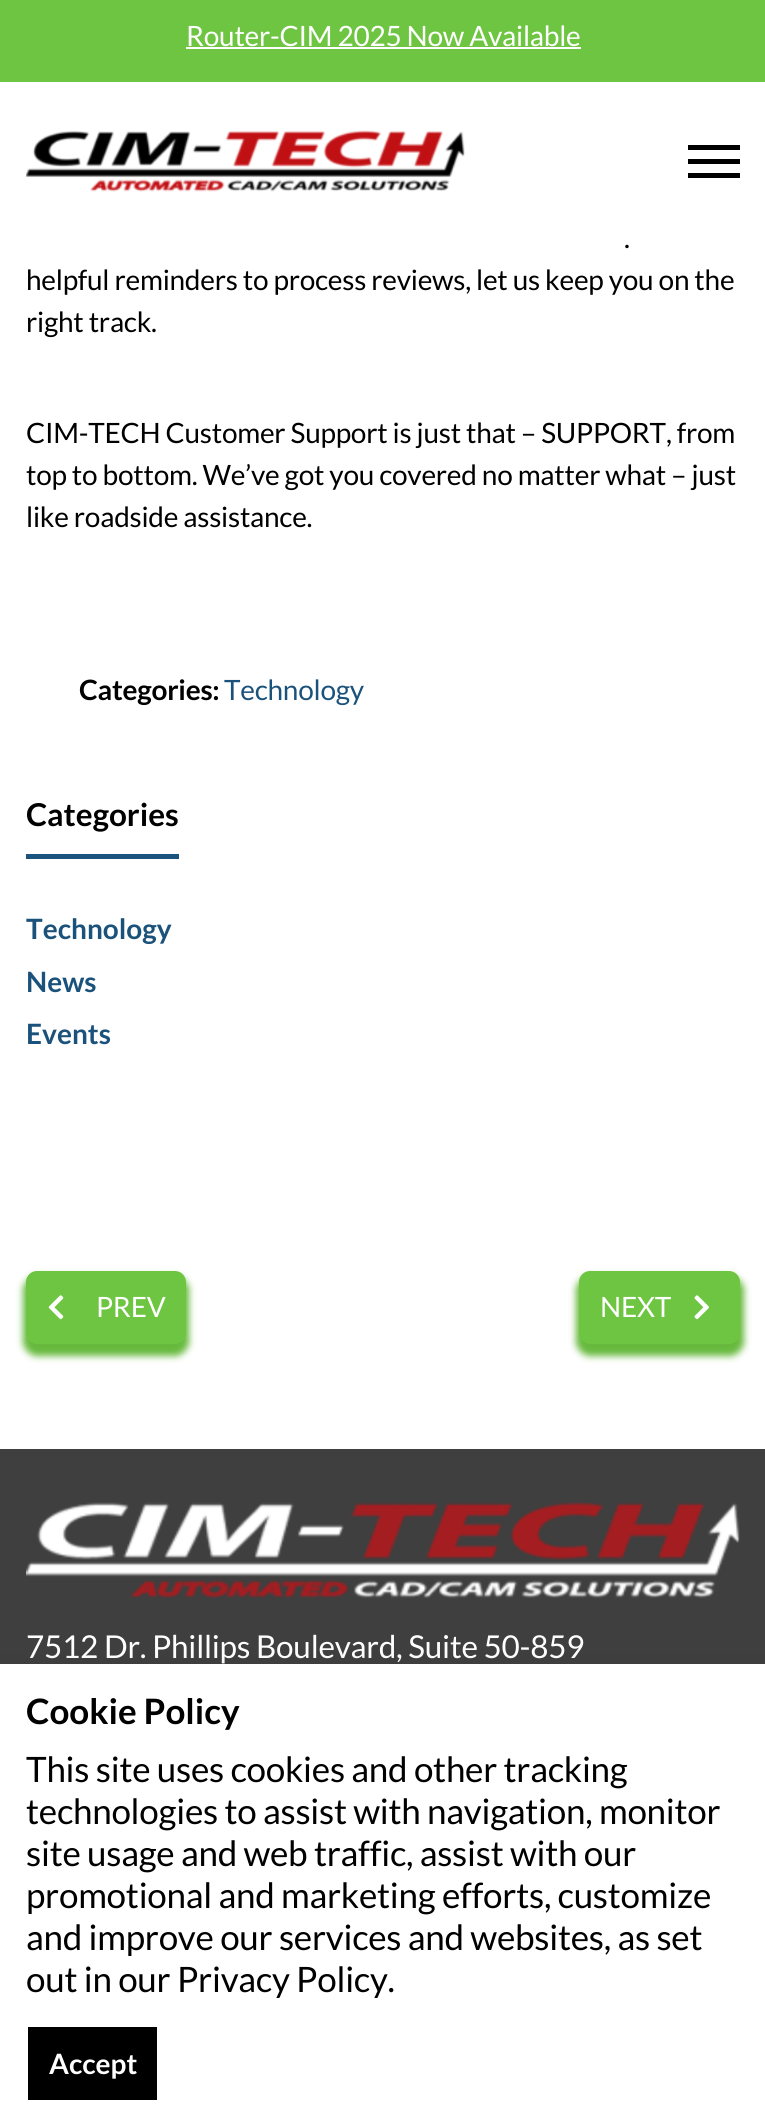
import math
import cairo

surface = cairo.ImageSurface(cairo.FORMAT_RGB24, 765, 2127)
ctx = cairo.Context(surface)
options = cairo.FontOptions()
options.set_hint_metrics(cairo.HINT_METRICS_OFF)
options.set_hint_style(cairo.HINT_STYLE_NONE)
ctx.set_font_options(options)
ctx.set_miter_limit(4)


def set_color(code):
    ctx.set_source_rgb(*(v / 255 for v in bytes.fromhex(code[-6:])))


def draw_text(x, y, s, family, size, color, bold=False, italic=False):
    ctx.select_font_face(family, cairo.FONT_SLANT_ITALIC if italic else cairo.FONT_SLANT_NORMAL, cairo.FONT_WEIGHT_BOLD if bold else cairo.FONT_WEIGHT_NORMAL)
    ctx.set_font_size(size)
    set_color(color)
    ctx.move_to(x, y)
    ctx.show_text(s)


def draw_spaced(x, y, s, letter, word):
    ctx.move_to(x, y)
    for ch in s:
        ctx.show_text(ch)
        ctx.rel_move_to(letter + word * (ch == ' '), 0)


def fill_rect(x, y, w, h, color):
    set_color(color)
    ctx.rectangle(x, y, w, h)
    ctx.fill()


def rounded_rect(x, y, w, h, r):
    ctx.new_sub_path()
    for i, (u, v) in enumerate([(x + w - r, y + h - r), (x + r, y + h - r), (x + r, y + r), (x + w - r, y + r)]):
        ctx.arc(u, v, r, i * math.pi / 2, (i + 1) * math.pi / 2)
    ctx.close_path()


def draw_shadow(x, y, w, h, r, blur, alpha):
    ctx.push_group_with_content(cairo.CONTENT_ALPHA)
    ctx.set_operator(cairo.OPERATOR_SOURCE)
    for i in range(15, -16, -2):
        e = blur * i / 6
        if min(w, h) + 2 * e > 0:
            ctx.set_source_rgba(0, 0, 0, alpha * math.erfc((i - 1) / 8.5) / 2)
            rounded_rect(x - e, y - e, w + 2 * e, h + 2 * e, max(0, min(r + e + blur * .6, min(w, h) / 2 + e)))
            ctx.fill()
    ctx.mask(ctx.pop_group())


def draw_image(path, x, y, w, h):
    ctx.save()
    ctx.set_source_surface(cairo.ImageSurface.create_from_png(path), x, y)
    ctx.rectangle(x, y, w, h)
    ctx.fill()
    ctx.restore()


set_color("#ffffff")
ctx.paint()
fill_rect(0, 0, 765, 82, "#6ec542")
ctx.select_font_face("Lato")
ctx.set_font_size(28)
set_color("#ffffff")
draw_spaced(186, 46, "Router-CIM 2025 Now Available", -0.25, 0)
fill_rect(186, 47, 395, 2, "#ffffff")
draw_image("assets/img1.png", 26, 130, 439, 62)
fill_rect(688, 159, 52, 5, "#000000")
fill_rect(688, 145, 52, 5, "#000000")
fill_rect(688, 173, 52, 5, "#000000")
draw_spaced(624, 248, ".", -0.25, 0)
draw_spaced(26, 290, "helpful reminders to process reviews, let us keep you on the", -0.25, 0)
draw_spaced(26, 332, "right track.", -0.25, 0)
draw_spaced(26, 443, "CIM-TECH Customer Support is just that – SUPPORT, from", -0.25, 0)
draw_spaced(26, 485, "top to bottom. We’ve got you covered no matter what – just", -0.25, 0)
draw_spaced(26, 527, "like roadside assistance.", -0.25, 0)
ctx.select_font_face("Lato", cairo.FONT_SLANT_NORMAL, cairo.FONT_WEIGHT_BOLD)
draw_spaced(79, 700, "Categories:", -0.25, 0)
ctx.select_font_face("Lato")
set_color("#1b527b")
draw_spaced(224, 700, "Technology", -0.25, 0)
draw_text(26, 826, "Categories", "Lato", 31.5, "#000000", bold=True)
fill_rect(26, 854, 153, 5, "#1a547c")
draw_text(26, 939, "Technology", "Lato", 28, "#1b527b", bold=True)
draw_text(26, 992, "News", "Lato", 28, "#1b527b", bold=True)
draw_text(26, 1044, "Events", "Lato", 28, "#1b527b", bold=True)
set_color("#66b93d")
draw_shadow(23, 1276, 166, 80, 14, 3.5, 1)
set_color("#6dc541")
rounded_rect(26, 1271, 160, 73, 11)
ctx.fill()
draw_image("assets/img2.png", 48, 1295, 16, 25)
ctx.select_font_face("Lato")
set_color("#ffffff")
draw_spaced(96, 1317, "PREV", -0.25, 0)
set_color("#66b93d")
draw_shadow(576, 1276, 168, 80, 14, 3.5, 1)
set_color("#6dc541")
rounded_rect(579, 1271, 161, 73, 11)
ctx.fill()
set_color("#ffffff")
draw_spaced(600, 1317, "NEXT", -0.25, 0)
draw_image("assets/img3.png", 694, 1295, 15, 25)
fill_rect(0, 1449, 765, 215, "#3f3f3f")
draw_image("assets/img4.png", 26, 1502, 714, 96)
ctx.set_font_size(31.5)
set_color("#ffffff")
draw_spaced(26, 1658, "7512 Dr. Phillips Boulevard, Suite 50-859", -0.25, 0)
set_color("#000000")
draw_shadow(0, 1664, 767, 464, 0, 13, 0.05)
fill_rect(0, 1664, 765, 463, "#ffffff")
draw_text(26, 1724, "Cookie Policy", "Lato", 35, "#000000", bold=True)
ctx.select_font_face("Lato")
draw_spaced(26, 1782, "This site uses cookies and other tracking", -0.25, 0)
draw_spaced(26, 1824, "technologies to assist with navigation, monitor", -0.25, 0)
draw_spaced(26, 1866, "site usage and web traffic, assist with our", -0.25, 0)
draw_spaced(26, 1908, "promotional and marketing efforts, customize", -0.25, 0)
draw_spaced(26, 1950, "and improve our services and websites, as set", -0.25, 0)
draw_spaced(26, 1992, "out in our Privacy Policy.", -0.25, 0)
fill_rect(28, 2027, 129, 73, "#000000")
draw_text(49, 2074, "Accept", "Lato", 28, "#ffffff", bold=True)
surface.write_to_png("output.png")
